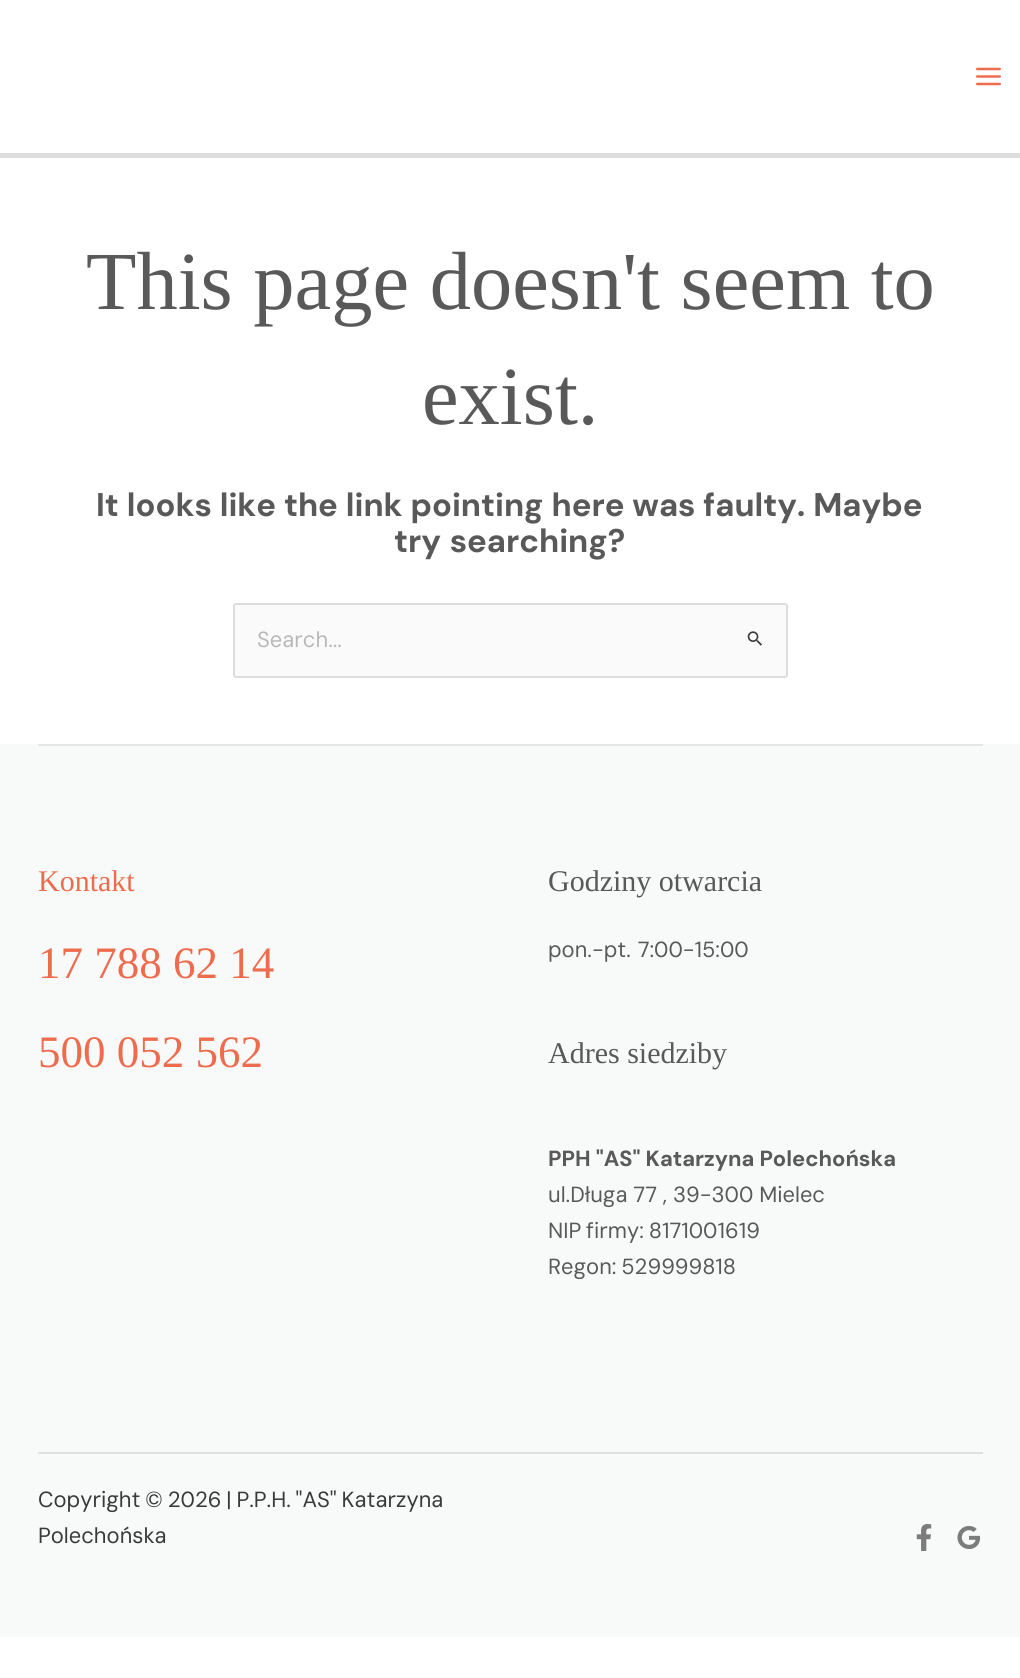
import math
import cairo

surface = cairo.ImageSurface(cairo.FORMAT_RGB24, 1020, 1678)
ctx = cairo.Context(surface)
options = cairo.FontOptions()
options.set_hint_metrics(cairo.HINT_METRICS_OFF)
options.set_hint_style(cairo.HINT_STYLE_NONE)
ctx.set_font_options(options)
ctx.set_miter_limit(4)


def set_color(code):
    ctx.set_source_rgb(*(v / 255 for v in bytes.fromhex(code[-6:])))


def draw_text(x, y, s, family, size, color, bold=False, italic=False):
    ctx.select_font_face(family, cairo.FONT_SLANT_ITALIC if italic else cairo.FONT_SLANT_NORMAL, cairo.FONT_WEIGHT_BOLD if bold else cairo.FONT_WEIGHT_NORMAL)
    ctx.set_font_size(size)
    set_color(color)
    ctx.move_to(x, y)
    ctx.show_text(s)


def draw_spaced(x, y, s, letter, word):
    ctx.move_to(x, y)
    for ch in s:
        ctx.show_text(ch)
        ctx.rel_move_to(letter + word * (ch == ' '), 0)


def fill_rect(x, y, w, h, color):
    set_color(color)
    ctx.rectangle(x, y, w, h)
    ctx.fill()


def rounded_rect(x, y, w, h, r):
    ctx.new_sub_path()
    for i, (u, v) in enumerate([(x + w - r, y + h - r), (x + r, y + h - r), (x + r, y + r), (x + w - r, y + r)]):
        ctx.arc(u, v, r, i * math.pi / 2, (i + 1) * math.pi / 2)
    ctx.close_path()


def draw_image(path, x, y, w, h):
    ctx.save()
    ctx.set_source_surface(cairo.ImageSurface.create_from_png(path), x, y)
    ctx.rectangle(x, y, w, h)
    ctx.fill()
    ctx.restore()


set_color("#ffffff")
ctx.paint()
fill_rect(0, 153, 1020, 5, "#dddddd")
draw_image("assets/img1.png", 976, 67, 25, 19)
draw_text(86, 309, "This page doesn't seem to", "Liberation Serif", 82.5, "#595959")
draw_text(422, 424, "exist.", "Liberation Serif", 82.5, "#595959")
ctx.select_font_face("DM Sans", cairo.FONT_SLANT_NORMAL, cairo.FONT_WEIGHT_BOLD)
ctx.set_font_size(32.8)
draw_spaced(96, 516, "It looks like the link pointing here was faulty. Maybe", 0, 0.25)
draw_spaced(394, 552, "try searching?", 0, 1)
set_color("#fafafa")
rounded_rect(234, 604, 553, 73, 2)
ctx.fill_preserve()
set_color("#dddddd")
ctx.stroke()
draw_text(257, 647, "Search...", "DM Sans", 21.9, "#b8b8b8")
draw_image("assets/img2.png", 747, 631, 15, 15)
fill_rect(0, 744, 1020, 893, "#f8f9f9")
fill_rect(38, 744, 945, 2, "#e6e6e6")
draw_text(38, 891, "Kontakt", "Liberation Serif", 30, "#ee6c4e")
draw_text(38, 978, "17 788 62 14", "Liberation Serif", 45, "#ee6c4e")
draw_text(38, 1067, "500 052 562", "Liberation Serif", 45, "#ee6c4e")
draw_text(548, 891, "Godziny otwarcia", "Liberation Serif", 30, "#595959")
ctx.select_font_face("DM Sans")
ctx.set_font_size(21.9)
draw_spaced(548, 957, "pon.-pt. 7:00-15:00", 0, 1)
draw_text(548, 1063, "Adres siedziby", "Liberation Serif", 30, "#595959")
draw_text(548, 1166, "PPH \"AS\" Katarzyna Polechońska", "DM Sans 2", 21.9, "#595959", bold=True)
draw_text(548, 1202, "ul.Długa 77 , 39-300 Mielec", "DM Sans", 21.9, "#595959")
draw_spaced(548, 1238, "NIP firmy: 8171001619", 0, -1)
draw_spaced(548, 1274, "Regon: 529999818", 0, -1)
fill_rect(38, 1452, 945, 2, "#dfe0e0")
set_color("#3a3a3a")
draw_spaced(38, 1507, "Copyright © 2026 | P.P.H. \"AS\" Katarzyna", 0, -1)
draw_text(38, 1543, "Polechońska", "DM Sans", 21.9, "#3a3a3a")
draw_image("assets/img3.png", 916, 1524, 16, 27)
draw_image("assets/img4.png", 957, 1526, 24, 23)
surface.write_to_png("output.png")
